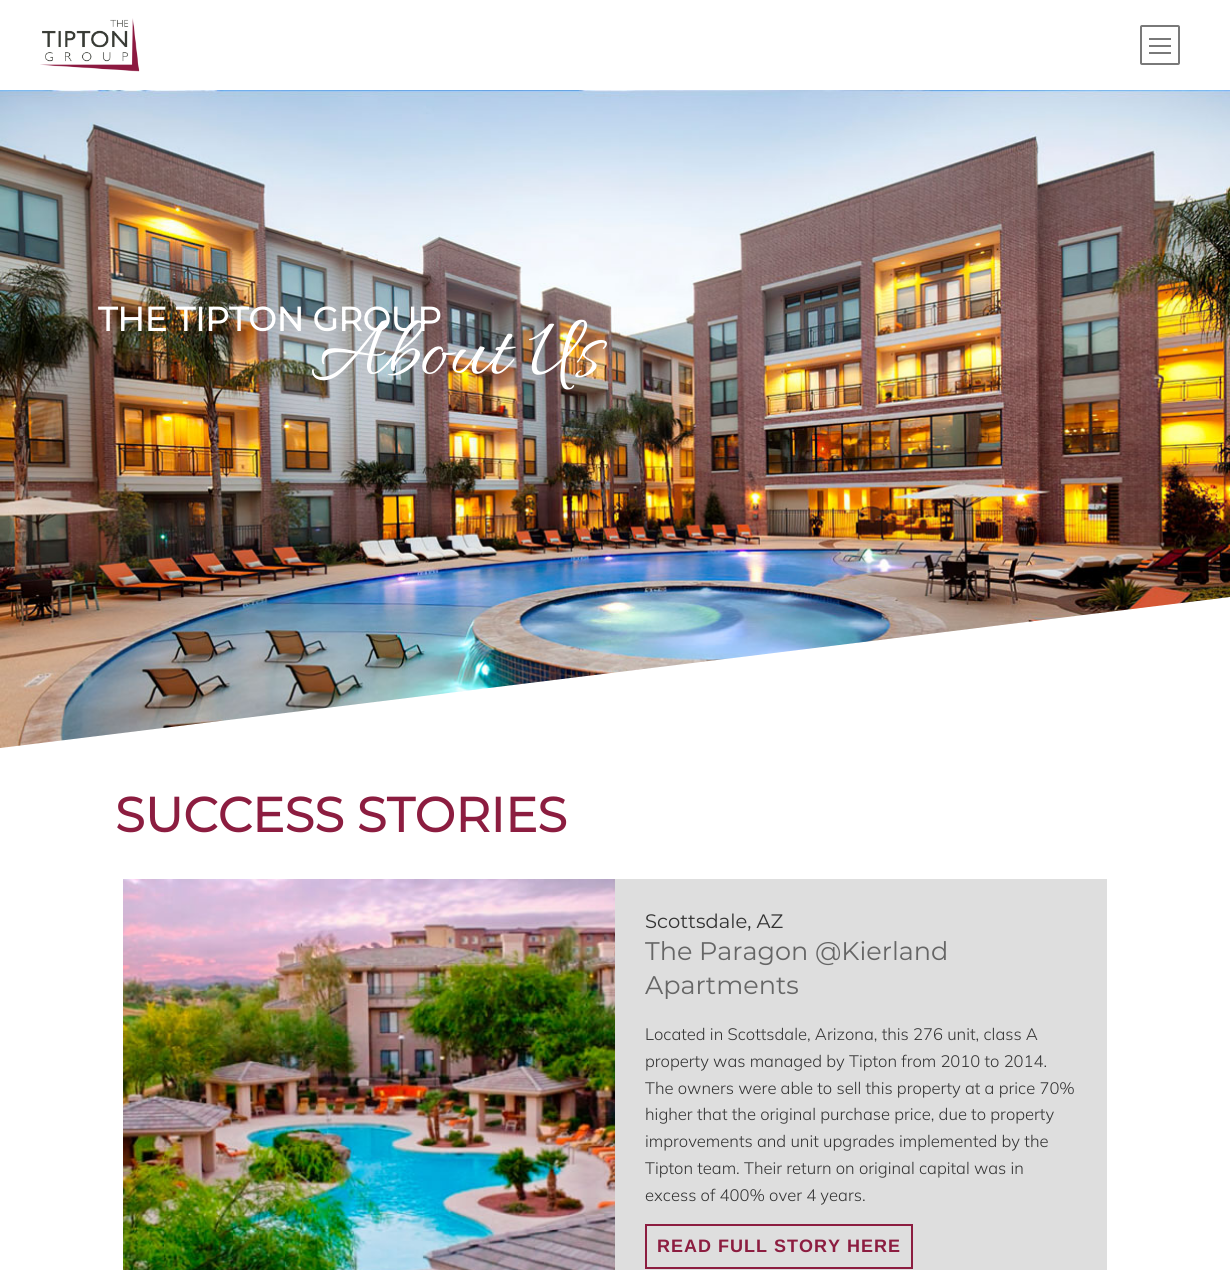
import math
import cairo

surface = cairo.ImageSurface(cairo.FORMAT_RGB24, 1230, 1270)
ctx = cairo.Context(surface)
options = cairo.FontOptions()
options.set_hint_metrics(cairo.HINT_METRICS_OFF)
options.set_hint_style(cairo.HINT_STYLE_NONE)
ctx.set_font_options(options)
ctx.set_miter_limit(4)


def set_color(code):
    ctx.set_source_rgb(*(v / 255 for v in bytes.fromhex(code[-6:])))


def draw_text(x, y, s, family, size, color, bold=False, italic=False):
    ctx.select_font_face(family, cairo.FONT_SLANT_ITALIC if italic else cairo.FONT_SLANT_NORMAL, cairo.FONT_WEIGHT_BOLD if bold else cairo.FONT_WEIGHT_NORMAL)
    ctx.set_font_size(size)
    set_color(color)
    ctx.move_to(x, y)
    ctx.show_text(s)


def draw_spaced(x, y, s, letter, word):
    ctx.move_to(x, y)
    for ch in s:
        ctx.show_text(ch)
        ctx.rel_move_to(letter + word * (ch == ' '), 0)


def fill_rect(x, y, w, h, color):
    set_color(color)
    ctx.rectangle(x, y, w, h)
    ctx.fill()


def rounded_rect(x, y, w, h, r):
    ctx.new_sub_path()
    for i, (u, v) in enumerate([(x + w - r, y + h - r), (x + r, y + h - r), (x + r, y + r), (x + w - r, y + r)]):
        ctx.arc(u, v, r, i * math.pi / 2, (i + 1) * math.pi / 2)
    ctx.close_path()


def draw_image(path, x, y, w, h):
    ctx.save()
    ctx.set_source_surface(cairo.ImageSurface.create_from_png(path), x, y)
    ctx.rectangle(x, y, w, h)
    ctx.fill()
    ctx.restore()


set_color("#ffffff")
ctx.paint()
draw_image("assets/img1.png", 40, 18, 100, 54)
rounded_rect(1141, 26, 38, 38, 1)
set_color("#797979")
ctx.stroke()
fill_rect(1149, 38, 22, 2, "#797979")
fill_rect(1149, 45, 22, 2, "#797979")
fill_rect(1149, 52, 22, 2, "#797979")
draw_image("assets/img2.png", 0, 90, 1230, 658)
draw_text(98, 331, "THE TIPTON GROUP", "Montserrat", 33.5, "#ffffff", bold=True)
draw_text(311, 373, "About Us", "Allura", 88, "#ffffff")
ctx.new_path()
ctx.move_to(0, 748)
ctx.line_to(1230, 597)
ctx.line_to(1230, 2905)
ctx.line_to(0, 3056)
ctx.close_path()
ctx.fill()
draw_text(115, 832, "SUCCESS STORIES", "Montserrat", 48.5, "#8c1d40", bold=True)
fill_rect(615, 879, 492, 391, "#dedede")
draw_image("assets/img3.png", 123, 879, 492, 391)
draw_text(645, 928, "Scottsdale, AZ", "Montserrat Thin", 19.5, "#333333")
draw_text(645, 960, "The Paragon @Kierland", "Montserrat Thin", 25.5, "#666666")
draw_text(645, 994, "Apartments", "Montserrat Thin", 25.5, "#666666")
draw_text(645, 1040, "Located in Scottsdale, Arizona, this 276 unit, class A", "Mulish Light", 16.6, "#333333")
draw_text(645, 1067, "property was managed by Tipton from 2010 to 2014.", "Mulish Light", 16.6, "#333333")
draw_text(645, 1094, "The owners were able to sell this property at a price 70%", "Mulish Light", 16.6, "#333333")
draw_text(645, 1120, "higher that the original purchase price, due to property", "Mulish Light", 16.6, "#333333")
draw_text(645, 1147, "improvements and unit upgrades implemented by the", "Mulish Light", 16.6, "#333333")
draw_text(645, 1174, "Tipton team. Their return on original capital was in", "Mulish Light", 16.6, "#333333")
draw_text(645, 1201, "excess of 400% over 4 years.", "Mulish Light", 16.6, "#333333")
ctx.rectangle(646, 1225, 266, 43)
set_color("#8c1d40")
ctx.stroke()
ctx.select_font_face("Liberation Sans", cairo.FONT_SLANT_NORMAL, cairo.FONT_WEIGHT_BOLD)
ctx.set_font_size(18)
draw_spaced(657, 1252, "READ FULL STORY HERE", 1, 0)
surface.write_to_png("output.png")
